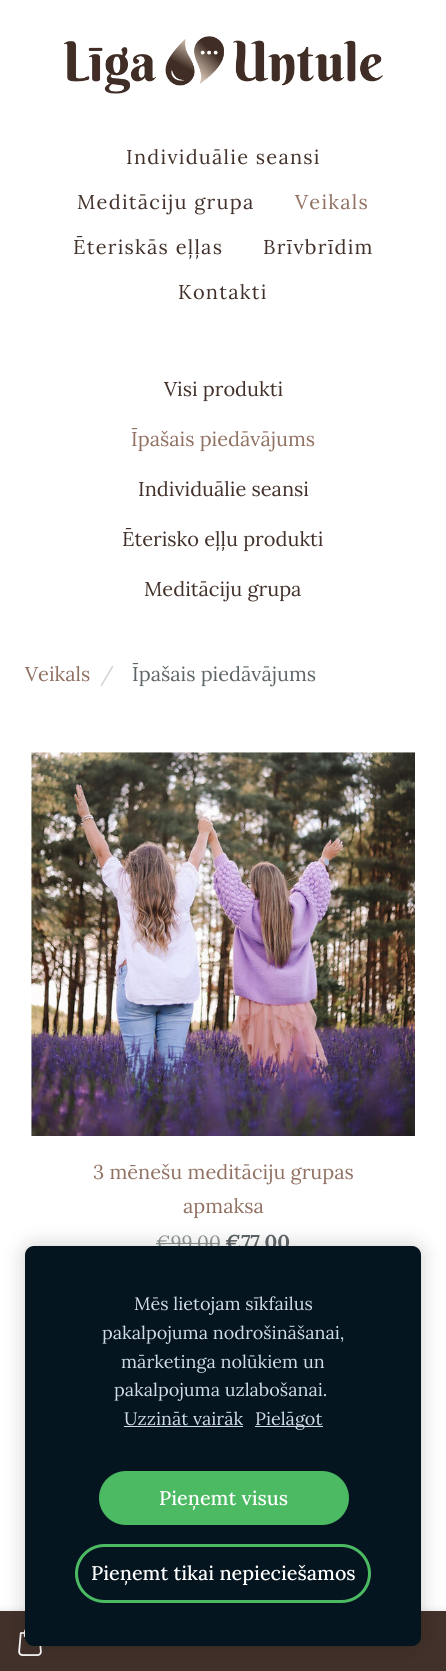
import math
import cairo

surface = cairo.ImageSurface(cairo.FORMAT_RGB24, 446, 1671)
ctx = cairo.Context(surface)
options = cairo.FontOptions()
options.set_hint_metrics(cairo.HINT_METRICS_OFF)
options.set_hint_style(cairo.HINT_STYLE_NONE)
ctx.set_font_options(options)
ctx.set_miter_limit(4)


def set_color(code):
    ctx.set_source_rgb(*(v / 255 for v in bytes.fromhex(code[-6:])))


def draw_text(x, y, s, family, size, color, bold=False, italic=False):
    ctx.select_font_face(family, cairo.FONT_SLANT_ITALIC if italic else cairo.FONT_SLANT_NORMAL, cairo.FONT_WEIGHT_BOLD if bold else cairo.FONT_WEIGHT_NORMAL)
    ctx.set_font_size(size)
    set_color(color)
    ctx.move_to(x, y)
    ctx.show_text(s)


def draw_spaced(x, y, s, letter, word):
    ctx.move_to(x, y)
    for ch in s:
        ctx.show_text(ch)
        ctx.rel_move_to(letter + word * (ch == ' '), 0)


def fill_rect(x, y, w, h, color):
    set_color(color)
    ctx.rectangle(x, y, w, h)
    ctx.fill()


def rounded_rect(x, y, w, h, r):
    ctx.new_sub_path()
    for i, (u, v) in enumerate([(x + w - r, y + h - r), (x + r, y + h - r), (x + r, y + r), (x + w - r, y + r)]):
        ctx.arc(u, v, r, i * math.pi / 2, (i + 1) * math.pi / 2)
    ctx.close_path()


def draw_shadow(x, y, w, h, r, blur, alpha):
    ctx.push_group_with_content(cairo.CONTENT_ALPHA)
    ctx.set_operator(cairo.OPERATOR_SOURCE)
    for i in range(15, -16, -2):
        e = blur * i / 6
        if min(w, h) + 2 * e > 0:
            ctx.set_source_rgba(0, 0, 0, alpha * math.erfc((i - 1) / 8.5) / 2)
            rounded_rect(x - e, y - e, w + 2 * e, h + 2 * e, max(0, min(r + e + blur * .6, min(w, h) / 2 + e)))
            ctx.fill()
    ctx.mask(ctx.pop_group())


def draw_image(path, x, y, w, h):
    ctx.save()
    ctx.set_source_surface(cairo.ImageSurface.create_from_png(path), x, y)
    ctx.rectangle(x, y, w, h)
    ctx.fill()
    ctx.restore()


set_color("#ffffff")
ctx.paint()
draw_image("assets/img1.png", 63, 36, 320, 58)
ctx.select_font_face("Lora")
ctx.set_font_size(20)
set_color("#42312a")
draw_spaced(126, 164, "Individuālie seansi", 1.25, 0)
draw_spaced(77, 209, "Meditāciju grupa", 1.25, 0)
set_color("#917162")
draw_spaced(295, 209, "Veikals", 1.25, 0)
set_color("#42312a")
draw_spaced(73, 254, "Ēteriskās eļļas", 1.25, 0)
draw_spaced(263, 254, "Brīvbrīdim", 1.25, 0)
draw_spaced(178, 299, "Kontakti", 1.25, 0)
draw_text(164, 396, "Visi produkti", "Lora", 20, "#42312a")
draw_text(131, 446, "Īpašais piedāvājums", "Lora", 20, "#917162")
draw_text(138, 496, "Individuālie seansi", "Lora", 20, "#42312a")
draw_text(122, 546, "Ēterisko eļļu produkti", "Lora", 20, "#42312a")
draw_text(144, 596, "Meditāciju grupa", "Lora", 20, "#42312a")
draw_text(25, 681, "Veikals", "Lora", 20, "#917162")
draw_text(100, 681, "/", "Lora", 20, "#cfd1d2")
draw_text(132, 681, "Īpašais piedāvājums", "Lora", 20, "#5e6568")
draw_image("assets/img2.png", 31, 752, 384, 384)
draw_text(93, 1179, "3 mēnešu meditāciju grupas", "Lora", 20, "#917162")
draw_text(183, 1213, "apmaksa", "Lora", 20, "#917162")
draw_text(156, 1249, "€99.00", "Lora", 19, "#8e9395")
fill_rect(156, 1243, 64, 1, "#8e9395")
draw_text(225, 1249, "€77.00", "Lora", 20, "#5e6568", bold=True)
set_color("#000000")
draw_shadow(-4, 1610, 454, 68, 0, 3, 0.1)
fill_rect(0, 1611, 446, 60, "#42312a")
draw_image("assets/img3.png", 18, 1629, 24, 27)
set_color("#000000")
draw_shadow(25, 1246, 396, 400, 9, 10.5, 0.2)
set_color("#04151f")
rounded_rect(25, 1246, 396, 400, 9)
ctx.fill()
draw_text(134, 1310, "Mēs lietojam sīkfailus", "Lora", 18, "#d2dce6")
draw_text(102, 1339, "pakalpojuma nodrošināšanai,", "Lora", 18, "#d2dce6")
draw_text(121, 1368, "mārketinga nolūkiem un", "Lora", 18, "#d2dce6")
draw_text(114, 1396, "pakalpojuma uzlabošanai.", "Lora", 18, "#d2dce6")
draw_text(124, 1425, "Uzzināt vairāk", "Lora", 18, "#d2dce6")
fill_rect(124, 1426, 119, 1, "#d2dce6")
fill_rect(255, 1426, 68, 1, "#d2dce6")
draw_text(255, 1425, "Pielāgot", "Lora", 18, "#d2dce6")
set_color("#4cb963")
rounded_rect(99, 1471, 250, 54, 27)
ctx.fill()
draw_text(159, 1505, "Pieņemt visus", "Lora Medium", 19.75, "#ffffff")
rounded_rect(76.5, 1545.5, 293, 56, 28)
set_color("#4cb963")
ctx.set_line_width(3)
ctx.stroke()
draw_text(91, 1580, "Pieņemt tikai nepieciešamos", "Lora Medium", 19.75, "#ffffff")
surface.write_to_png("output.png")
